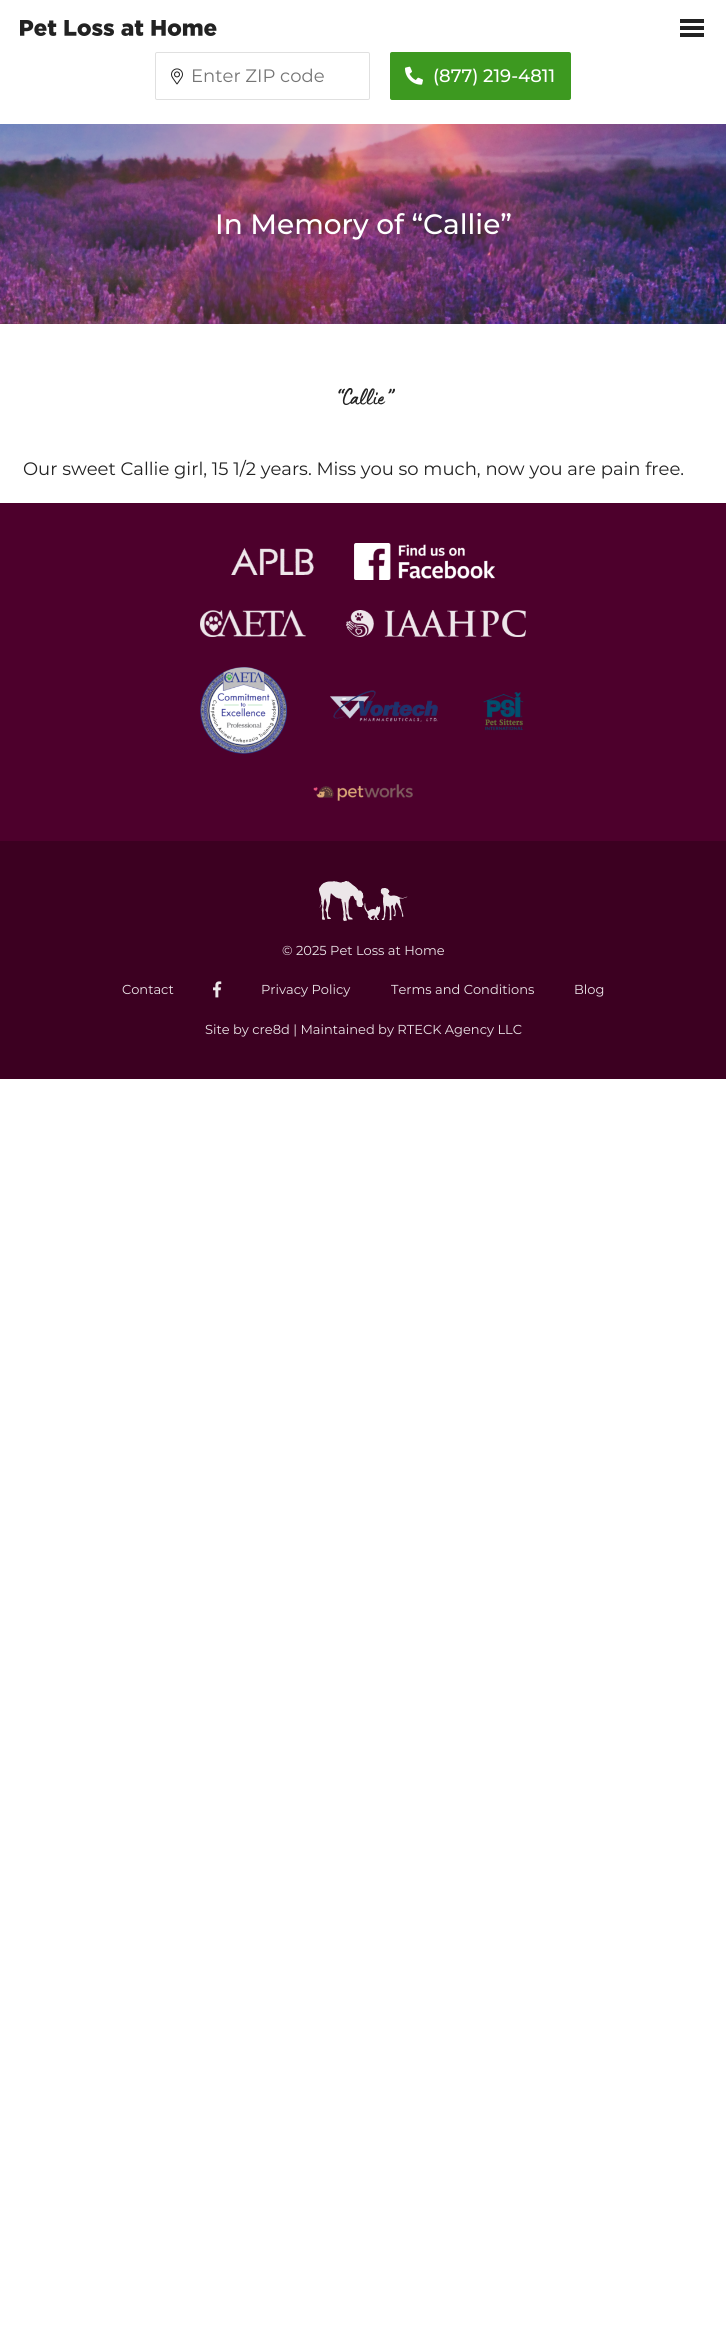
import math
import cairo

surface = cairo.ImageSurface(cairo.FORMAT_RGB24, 726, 2350)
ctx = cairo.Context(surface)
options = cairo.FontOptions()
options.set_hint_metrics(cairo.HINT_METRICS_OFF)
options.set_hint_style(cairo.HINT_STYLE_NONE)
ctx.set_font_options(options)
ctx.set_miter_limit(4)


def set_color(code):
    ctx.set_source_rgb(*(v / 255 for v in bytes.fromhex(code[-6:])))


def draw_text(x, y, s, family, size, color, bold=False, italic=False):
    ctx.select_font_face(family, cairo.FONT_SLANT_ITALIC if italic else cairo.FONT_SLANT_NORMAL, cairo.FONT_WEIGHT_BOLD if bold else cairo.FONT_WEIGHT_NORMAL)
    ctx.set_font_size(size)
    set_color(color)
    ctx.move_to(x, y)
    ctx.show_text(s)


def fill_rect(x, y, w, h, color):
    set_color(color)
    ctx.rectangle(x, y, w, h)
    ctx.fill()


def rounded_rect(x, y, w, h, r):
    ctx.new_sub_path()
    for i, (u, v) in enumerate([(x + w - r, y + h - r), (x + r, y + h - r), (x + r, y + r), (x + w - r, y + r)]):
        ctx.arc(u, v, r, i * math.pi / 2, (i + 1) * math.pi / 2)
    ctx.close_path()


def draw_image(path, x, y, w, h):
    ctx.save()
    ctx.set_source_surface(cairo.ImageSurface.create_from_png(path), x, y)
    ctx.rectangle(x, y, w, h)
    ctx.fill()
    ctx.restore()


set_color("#ffffff")
ctx.paint()
draw_image("assets/img1.png", 20, 20, 197, 16)
fill_rect(680, 26, 24, 4, "#222222")
fill_rect(680, 19, 24, 4, "#222222")
fill_rect(680, 33, 24, 4, "#222222")
rounded_rect(155.5, 52.5, 214, 47, 1.5)
set_color("#e0e0e0")
ctx.set_line_width(1)
ctx.stroke()
draw_image("assets/img2.png", 171, 68, 12, 17)
draw_text(191, 82, "Enter ZIP code", "Montserrat", 18, "#757575")
set_color("#3d9920")
rounded_rect(390, 52, 181, 48, 2)
ctx.fill()
draw_image("assets/img3.png", 405, 66, 18, 19)
draw_text(433, 82, "(877) 219-4811", "Montserrat Medium", 18, "#ffffff")
draw_image("assets/img4.png", 0, 124, 726, 200)
draw_text(215, 234, "In Memory of “Callie”", "Montserrat Medium", 28, "#ffffff")
draw_image("assets/img5.png", 338, 388, 57, 17)
draw_text(23, 475, "Our sweet Callie girl, 15 1/2 years. Miss you so much, now you are pain free.", "Montserrat", 18, "#222222")
fill_rect(0, 503, 726, 338, "#4d002c")
draw_image("assets/img6.png", 231, 548, 83, 27)
draw_image("assets/img7.png", 354, 543, 141, 37)
draw_image("assets/img8.png", 200, 610, 106, 27)
draw_image("assets/img9.png", 346, 610, 180, 27)
draw_image("assets/img10.png", 200, 667, 87, 87)
draw_image("assets/img11.png", 330, 690, 108, 32)
draw_image("assets/img12.png", 483, 691, 41, 40)
draw_image("assets/img13.png", 313, 784, 100, 17)
fill_rect(0, 841, 726, 238, "#3c0021")
draw_image("assets/img14.png", 319, 881, 89, 40)
draw_text(282, 955, "© 2025 Pet Loss at Home", "Montserrat", 13, "#ece6e9")
draw_text(122, 994, "Contact", "Montserrat", 13, "#ece6e9")
draw_image("assets/img15.png", 213, 981, 9, 17)
draw_text(261, 994, "Privacy Policy", "Montserrat", 13, "#ece6e9")
draw_text(391, 994, "Terms and Conditions", "Montserrat", 13, "#ece6e9")
draw_text(574, 994, "Blog", "Montserrat", 13, "#ece6e9")
draw_text(205, 1034, "Site by cre8d | Maintained by RTECK Agency LLC", "Montserrat", 13, "#ece6e9")
surface.write_to_png("output.png")
